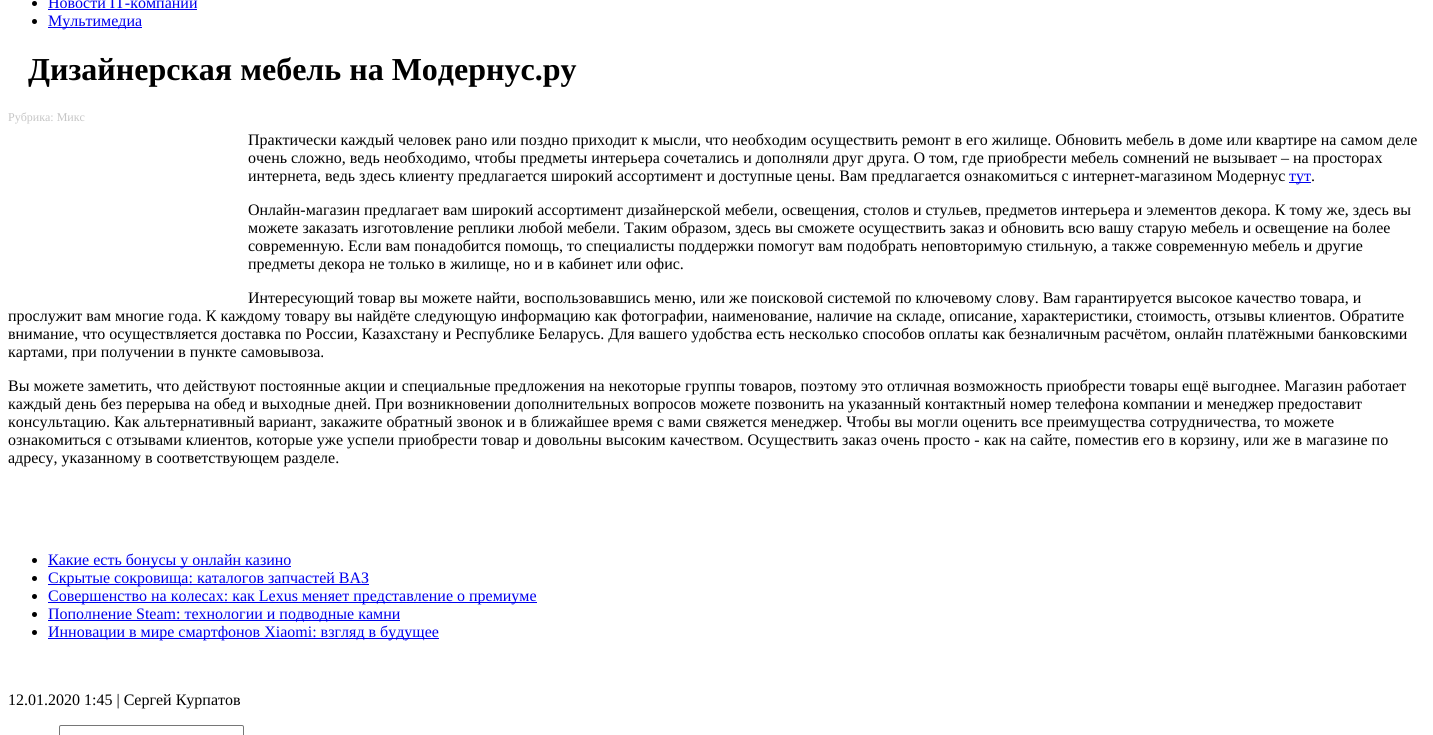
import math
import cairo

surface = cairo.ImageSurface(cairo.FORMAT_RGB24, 1433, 735)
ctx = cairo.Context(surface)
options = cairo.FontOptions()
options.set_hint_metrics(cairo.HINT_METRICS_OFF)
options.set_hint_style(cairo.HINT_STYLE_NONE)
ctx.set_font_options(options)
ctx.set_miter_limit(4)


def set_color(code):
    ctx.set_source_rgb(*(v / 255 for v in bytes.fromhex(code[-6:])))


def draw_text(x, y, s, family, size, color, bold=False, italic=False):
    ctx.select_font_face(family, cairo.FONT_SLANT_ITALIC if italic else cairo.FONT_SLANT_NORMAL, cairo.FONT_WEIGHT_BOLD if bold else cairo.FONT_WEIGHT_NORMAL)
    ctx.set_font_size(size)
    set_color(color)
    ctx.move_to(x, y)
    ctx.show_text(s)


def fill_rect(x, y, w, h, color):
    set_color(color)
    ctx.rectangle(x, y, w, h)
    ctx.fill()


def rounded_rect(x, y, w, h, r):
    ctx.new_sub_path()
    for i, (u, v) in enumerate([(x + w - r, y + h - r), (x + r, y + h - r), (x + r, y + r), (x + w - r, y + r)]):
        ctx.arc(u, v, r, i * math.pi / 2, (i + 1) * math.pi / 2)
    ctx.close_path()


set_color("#ffffff")
ctx.paint()
set_color("#000000")
ctx.arc(34.5, 3.5, 2.5, 0, 2 * math.pi)
ctx.fill()
draw_text(48, 8, "Новости IT-компаний", "Liberation Serif", 16, "#0000ee")
fill_rect(48, 9, 149, 1, "#0000ee")
set_color("#000000")
ctx.new_path()
ctx.arc(34.5, 21.5, 2.5, 0, 2 * math.pi)
ctx.fill()
fill_rect(48, 27, 94, 1, "#0000ee")
draw_text(48, 26, "Мультимедиа", "Liberation Serif", 16, "#0000ee")
draw_text(28, 80, "Дизайнерская мебель на Модернус.ру", "Liberation Serif", 32, "#000000", bold=True)
draw_text(8, 121, "Рубрика: Микс", "Liberation Serif", 12, "#c6c6c6")
draw_text(248, 145, "Практически каждый человек рано или поздно приходит к мысли, что необходим осуществить ремонт в его жилище. Обновить мебель в доме или квартире на самом деле", "Liberation Serif", 16, "#000000")
draw_text(248, 163, "очень сложно, ведь необходимо, чтобы предметы интерьера сочетались и дополняли друг друга. О том, где приобрести мебель сомнений не вызывает – на просторах", "Liberation Serif", 16, "#000000")
draw_text(248, 181, "интернета, ведь здесь клиенту предлагается широкий ассортимент и доступные цены. Вам предлагается ознакомиться с интернет-магазином Модернус", "Liberation Serif", 16, "#000000")
fill_rect(1289, 182, 22, 1, "#0000ee")
draw_text(1289, 181, "тут", "Liberation Serif", 16, "#0000ee")
draw_text(1311, 181, ".", "Liberation Serif", 16, "#000000")
draw_text(248, 215, "Онлайн-магазин предлагает вам широкий ассортимент дизайнерской мебели, освещения, столов и стульев, предметов интерьера и элементов декора. К тому же, здесь вы", "Liberation Serif", 16, "#000000")
draw_text(248, 233, "можете заказать изготовление реплики любой мебели. Таким образом, здесь вы сможете осуществить заказ и обновить всю вашу старую мебель и освещение на более", "Liberation Serif", 16, "#000000")
draw_text(248, 251, "современную. Если вам понадобится помощь, то специалисты поддержки помогут вам подобрать неповторимую стильную, а также современную мебель и другие", "Liberation Serif", 16, "#000000")
draw_text(248, 269, "предметы декора не только в жилище, но и в кабинет или офис.", "Liberation Serif", 16, "#000000")
draw_text(248, 303, "Интересующий товар вы можете найти, воспользовавшись меню, или же поисковой системой по ключевому слову. Вам гарантируется высокое качество товара, и", "Liberation Serif", 16, "#000000")
draw_text(8, 321, "прослужит вам многие года. К каждому товару вы найдёте следующую информацию как фотографии, наименование, наличие на складе, описание, характеристики, стоимость, отзывы клиентов. Обратите", "Liberation Serif", 16, "#000000")
draw_text(8, 339, "внимание, что осуществляется доставка по России, Казахстану и Республике Беларусь. Для вашего удобства есть несколько способов оплаты как безналичным расчётом, онлайн платёжными банковскими", "Liberation Serif", 16, "#000000")
draw_text(8, 357, "картами, при получении в пункте самовывоза.", "Liberation Serif", 16, "#000000")
draw_text(8, 391, "Вы можете заметить, что действуют постоянные акции и специальные предложения на некоторые группы товаров, поэтому это отличная возможность приобрести товары ещё выгоднее. Магазин работает", "Liberation Serif", 16, "#000000")
draw_text(8, 409, "каждый день без перерыва на обед и выходные дней. При возникновении дополнительных вопросов можете позвонить на указанный контактный номер телефона компании и менеджер предоставит", "Liberation Serif", 16, "#000000")
draw_text(8, 427, "консультацию. Как альтернативный вариант, закажите обратный звонок и в ближайшее время с вами свяжется менеджер. Чтобы вы могли оценить все преимущества сотрудничества, то можете", "Liberation Serif", 16, "#000000")
draw_text(8, 445, "ознакомиться с отзывами клиентов, которые уже успели приобрести товар и довольны высоким качеством. Осуществить заказ очень просто - как на сайте, поместив его в корзину, или же в магазине по", "Liberation Serif", 16, "#000000")
draw_text(8, 463, "адресу, указанному в соответствующем разделе.", "Liberation Serif", 16, "#000000")
ctx.new_path()
ctx.arc(34.5, 560.5, 2.5, 0, 2 * math.pi)
ctx.fill()
fill_rect(48, 566, 243, 1, "#0000ee")
draw_text(48, 565, "Какие есть бонусы у онлайн казино", "Liberation Serif", 16, "#0000ee")
set_color("#000000")
ctx.new_path()
ctx.arc(34.5, 578.5, 2.5, 0, 2 * math.pi)
ctx.fill()
fill_rect(48, 584, 321, 1, "#0000ee")
draw_text(48, 583, "Скрытые сокровища: каталогов запчастей ВАЗ", "Liberation Serif", 16, "#0000ee")
set_color("#000000")
ctx.new_path()
ctx.arc(34.5, 596.5, 2.5, 0, 2 * math.pi)
ctx.fill()
fill_rect(48, 602, 489, 1, "#0000ee")
draw_text(48, 601, "Совершенство на колесах: как Lexus меняет представление о премиуме", "Liberation Serif", 16, "#0000ee")
set_color("#000000")
ctx.new_path()
ctx.arc(34.5, 614.5, 2.5, 0, 2 * math.pi)
ctx.fill()
fill_rect(48, 620, 352, 1, "#0000ee")
draw_text(48, 619, "Пополнение Steam: технологии и подводные камни", "Liberation Serif", 16, "#0000ee")
set_color("#000000")
ctx.new_path()
ctx.arc(34.5, 632.5, 2.5, 0, 2 * math.pi)
ctx.fill()
fill_rect(48, 638, 391, 1, "#0000ee")
draw_text(48, 637, "Инновации в мире смартфонов Xiaomi: взгляд в будущее", "Liberation Serif", 16, "#0000ee")
draw_text(8, 705, "12.01.2020 1:45 | Сергей Курпатов", "Liberation Serif", 16, "#000000")
rounded_rect(59.5, 725.5, 184, 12, 1.5)
set_color("#767676")
ctx.set_line_width(1)
ctx.stroke()
surface.write_to_png("output.png")
